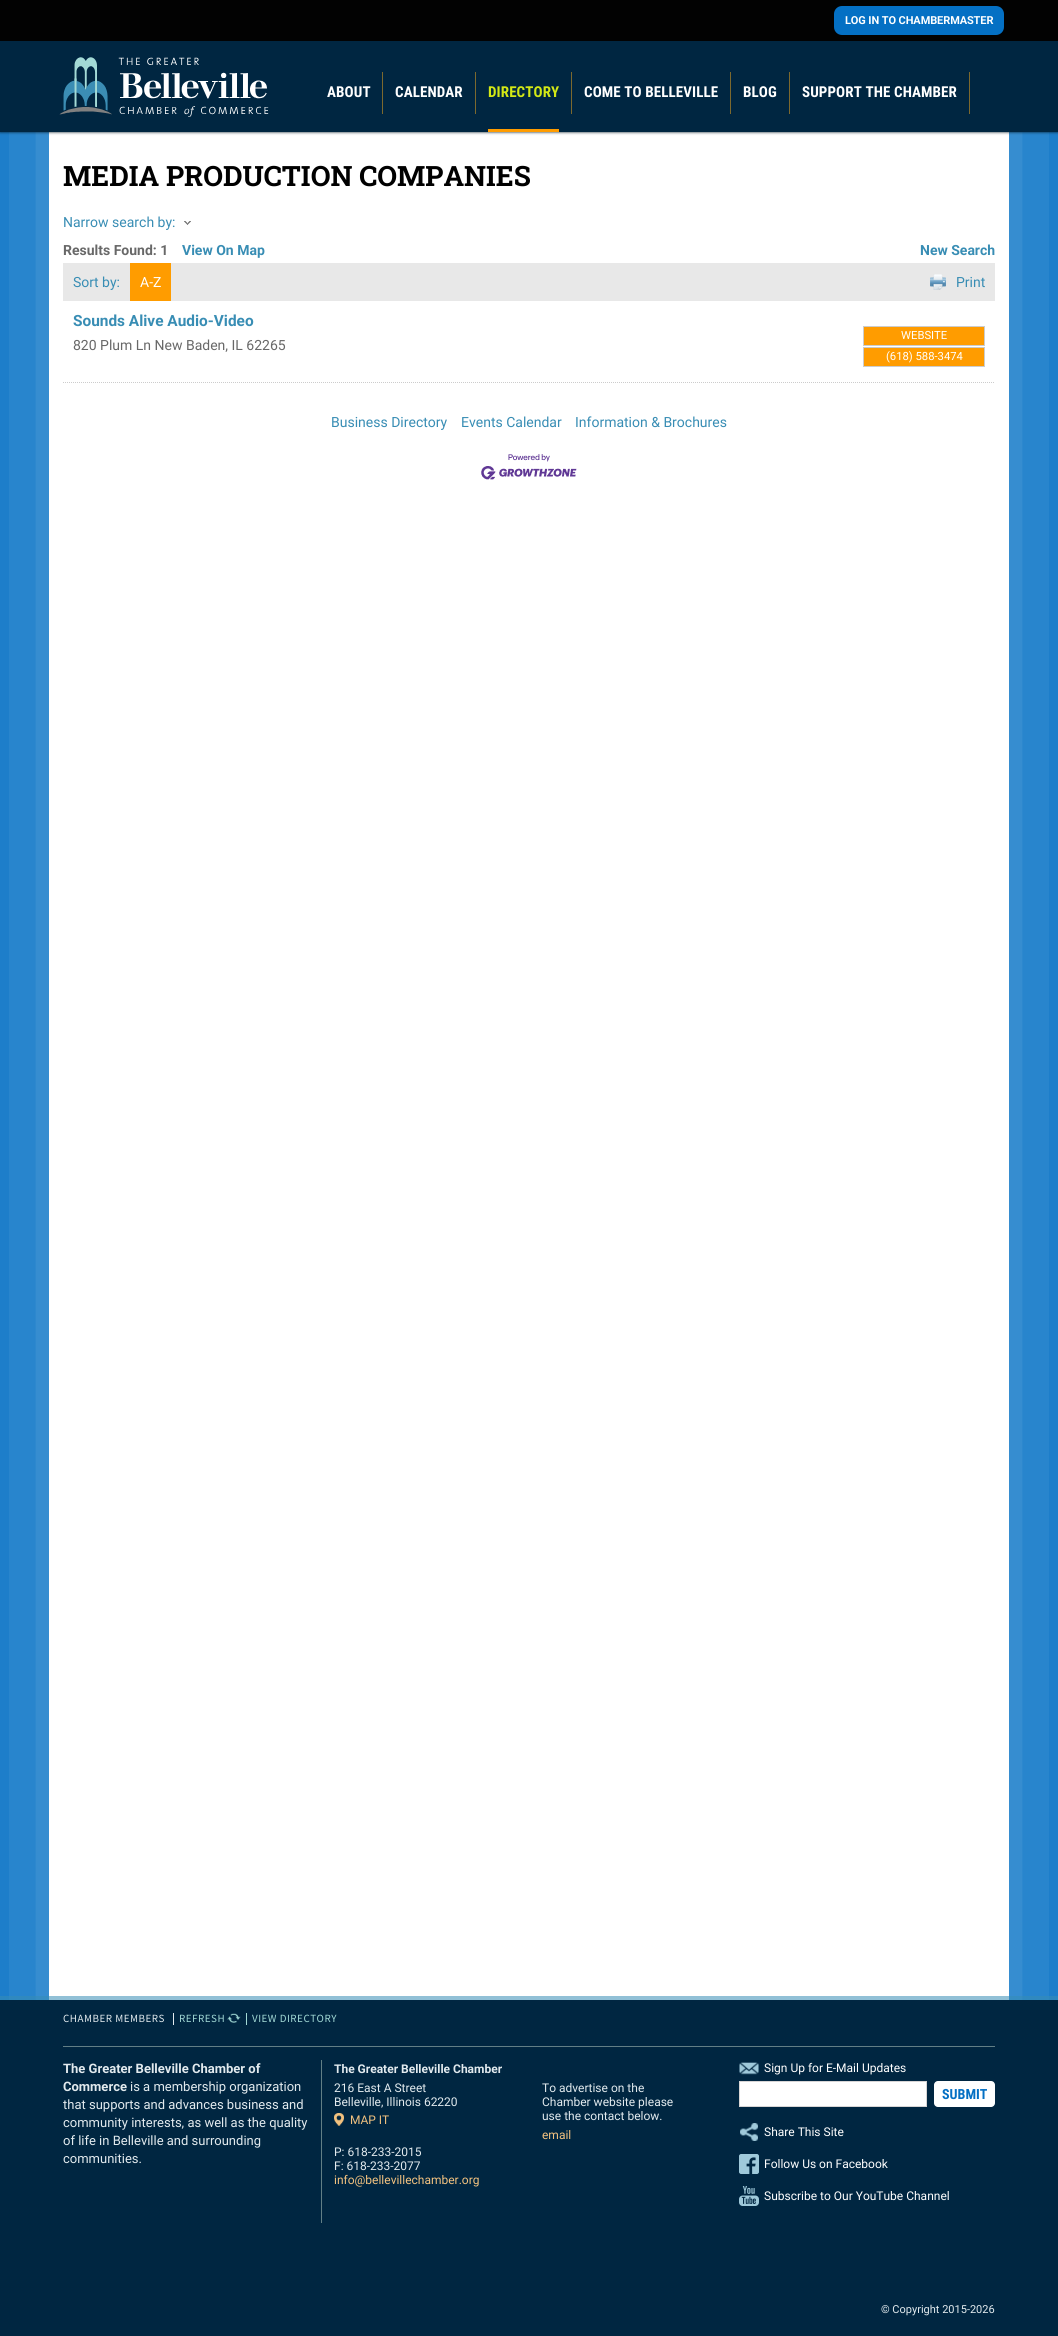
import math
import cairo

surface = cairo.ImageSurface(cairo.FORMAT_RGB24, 1058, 2336)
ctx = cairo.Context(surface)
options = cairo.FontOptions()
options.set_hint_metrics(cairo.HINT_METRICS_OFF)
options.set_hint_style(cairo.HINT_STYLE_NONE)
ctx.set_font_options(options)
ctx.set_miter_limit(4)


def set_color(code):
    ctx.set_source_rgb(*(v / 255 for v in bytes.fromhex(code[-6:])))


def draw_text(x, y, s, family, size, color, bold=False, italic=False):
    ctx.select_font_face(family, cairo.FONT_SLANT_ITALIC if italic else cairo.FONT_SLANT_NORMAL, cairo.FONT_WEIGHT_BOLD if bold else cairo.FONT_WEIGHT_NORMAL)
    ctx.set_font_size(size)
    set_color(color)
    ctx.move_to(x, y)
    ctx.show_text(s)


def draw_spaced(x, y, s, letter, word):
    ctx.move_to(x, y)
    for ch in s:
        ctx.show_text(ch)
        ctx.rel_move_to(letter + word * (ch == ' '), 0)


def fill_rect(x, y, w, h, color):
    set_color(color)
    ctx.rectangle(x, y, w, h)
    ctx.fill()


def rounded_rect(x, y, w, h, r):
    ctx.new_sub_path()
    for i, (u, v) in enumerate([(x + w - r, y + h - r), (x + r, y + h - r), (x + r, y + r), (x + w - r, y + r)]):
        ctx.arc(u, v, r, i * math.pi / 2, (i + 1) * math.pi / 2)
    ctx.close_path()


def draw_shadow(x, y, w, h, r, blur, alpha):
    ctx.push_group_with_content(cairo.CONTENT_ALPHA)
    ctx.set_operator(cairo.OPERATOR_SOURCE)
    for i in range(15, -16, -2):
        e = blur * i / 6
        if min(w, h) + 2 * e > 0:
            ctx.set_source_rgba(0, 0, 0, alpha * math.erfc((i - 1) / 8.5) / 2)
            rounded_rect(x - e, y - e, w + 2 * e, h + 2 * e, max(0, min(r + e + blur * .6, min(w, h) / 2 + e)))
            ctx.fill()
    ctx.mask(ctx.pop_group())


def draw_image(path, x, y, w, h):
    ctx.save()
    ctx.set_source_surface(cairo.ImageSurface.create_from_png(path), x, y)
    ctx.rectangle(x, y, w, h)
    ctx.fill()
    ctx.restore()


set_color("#0470c4")
ctx.paint()
set_color("#ffffff")
draw_shadow(49, 0, 960, 2336, 0, 80, 0.4)
fill_rect(49, 132, 960, 1868, "#ffffff")
set_color("#031822")
draw_shadow(0, 0, 1058, 132, 0, 1.5, 1)
fill_rect(0, 41, 1058, 91, "#002641")
fill_rect(0, 0, 1058, 41, "#020202")
set_color("#0470c4")
rounded_rect(834, 6, 170, 29, 8)
ctx.fill()
ctx.select_font_face("Roboto", cairo.FONT_SLANT_NORMAL, cairo.FONT_WEIGHT_BOLD)
ctx.set_font_size(11)
set_color("#ffffff")
draw_spaced(845, 24, "LOG IN TO CHAMBERMASTER", -0.1, 0)
draw_image("assets/img1.png", 59, 57, 210, 60)
ctx.select_font_face("Roboto Condensed", cairo.FONT_SLANT_NORMAL, cairo.FONT_WEIGHT_BOLD)
ctx.set_font_size(15)
draw_spaced(327, 97, "ABOUT", 0.1, 0)
fill_rect(382, 72, 1, 42, "#7c692e")
set_color("#ffffff")
draw_spaced(395, 97, "CALENDAR", 0.1, 0)
fill_rect(475, 72, 1, 42, "#7c692e")
set_color("#d4e915")
draw_spaced(488, 97, "DIRECTORY", 0.1, 0)
fill_rect(488, 129, 71, 3, "#ff9c00")
fill_rect(571, 72, 1, 42, "#7c692e")
set_color("#ffffff")
draw_spaced(584, 97, "COME TO BELLEVILLE", 0.1, 0)
fill_rect(730, 72, 1, 42, "#7c692e")
set_color("#ffffff")
draw_spaced(743, 97, "BLOG", 0.1, 0)
fill_rect(789, 72, 1, 42, "#7c692e")
set_color("#ffffff")
draw_spaced(802, 97, "SUPPORT THE CHAMBER", 0.1, 0)
fill_rect(969, 72, 1, 42, "#7c692e")
draw_text(63, 186, "MEDIA PRODUCTION COMPANIES", "Roboto Slab", 28, "#000000", bold=True)
draw_text(63, 227, "Narrow search by:", "Roboto", 14, "#388db4")
draw_image("assets/img2.png", 184, 221, 7, 4)
draw_text(63, 255, "Results Found: 1", "Roboto", 14, "#686868", bold=True)
draw_text(182, 255, "View On Map", "Roboto", 14, "#388db4", bold=True)
draw_text(920, 255, "New Search", "Roboto", 14, "#388db4", bold=True)
fill_rect(63, 263, 932, 38, "#e8e8e8")
draw_text(73, 287, "Sort by:", "Roboto", 14, "#388db4")
fill_rect(130, 263, 41, 38, "#ff9c00")
draw_text(140, 287, "A-Z", "Roboto", 14, "#ffffff")
draw_image("assets/img3.png", 930, 274, 16, 16)
draw_text(956, 287, "Print", "Roboto", 14, "#388db4")
ctx.new_path()
ctx.move_to(63, 382.5)
ctx.line_to(995, 382.5)
set_color("#cccccc")
ctx.set_line_width(1)
ctx.set_dash([1, 1])
ctx.stroke()
draw_text(73, 326, "Sounds Alive Audio-Video", "Roboto", 15.4, "#388db4", bold=True)
draw_text(73, 350, "820 Plum Ln New Baden, IL 62265", "Roboto", 14, "#686868")
set_color("#ff9c00")
ctx.rectangle(863.5, 326.5, 121, 19)
ctx.fill_preserve()
set_color("#cccccc")
ctx.set_dash([])
ctx.stroke()
draw_text(901, 339, "WEBSITE", "Roboto", 11.25, "#ffffff")
set_color("#ff9c00")
ctx.rectangle(863.5, 347.5, 121, 19)
ctx.fill_preserve()
set_color("#cccccc")
ctx.stroke()
draw_text(886, 360, "(618) 588-3474", "Roboto", 11.25, "#ffffff")
draw_text(331, 427, "Business Directory", "Roboto", 14, "#388db4")
draw_text(461, 427, "Events Calendar", "Roboto", 14, "#388db4")
draw_text(575, 427, "Information & Brochures", "Roboto", 14, "#388db4")
draw_image("assets/img4.png", 481, 454, 96, 26)
fill_rect(0, 2000, 1058, 336, "#002641")
ctx.set_source_rgba(0.22, 0.553, 0.706, 0.55)
ctx.rectangle(0, 1996, 1058, 4)
ctx.fill()
fill_rect(63, 2046, 932, 1, "#627f86")
ctx.select_font_face("Source Sans Pro")
ctx.set_font_size(11)
set_color("#e2eaee")
draw_spaced(63, 2022, "CHAMBER MEMBERS", 0.5, 0)
draw_image("assets/img5.png", 227, 2013, 14, 10)
fill_rect(173, 2013, 1, 12, "#e2eaee")
set_color("#a3dad6")
draw_spaced(179, 2022, "REFRESH", 0.5, 0)
fill_rect(246, 2013, 1, 12, "#a3dad6")
draw_spaced(252, 2022, "VIEW DIRECTORY", 0.5, 0)
draw_text(63, 2073, "The Greater Belleville Chamber of", "Roboto", 13, "#e2eaee", bold=True)
draw_text(63, 2091, "Commerce", "Roboto", 13, "#e2eaee", bold=True)
draw_text(130, 2091, "is a membership organization", "Roboto", 13, "#e2eaee")
draw_text(63, 2109, "that supports and advances business and", "Roboto", 13, "#e2eaee")
draw_text(63, 2127, "community interests, as well as the quality", "Roboto", 13, "#e2eaee")
draw_text(63, 2145, "of life in Belleville and surrounding", "Roboto", 13, "#e2eaee")
draw_text(63, 2163, "communities.", "Roboto", 13, "#e2eaee")
fill_rect(321, 2060, 1, 163, "#627f86")
draw_text(334, 2073, "The Greater Belleville Chamber", "Roboto", 12, "#e2eaee", bold=True)
draw_text(334, 2092, "216 East A Street", "Roboto", 12, "#e2eaee")
draw_text(334, 2106, "Belleville, Illinois 62220", "Roboto", 12, "#e2eaee")
draw_image("assets/img6.png", 334, 2113, 10, 13)
draw_text(350, 2124, "MAP IT", "Roboto", 12, "#f3c27f")
draw_text(334, 2156, "P: 618-233-2015", "Roboto", 12, "#e2eaee")
draw_text(334, 2170, "F: 618-233-2077", "Roboto", 12, "#e2eaee")
draw_text(334, 2184, "info@bellevillechamber.org", "Roboto", 12, "#f3c27f")
draw_text(542, 2092, "To advertise on the", "Roboto", 12, "#e2eaee")
draw_text(542, 2106, "Chamber website please", "Roboto", 12, "#e2eaee")
draw_text(542, 2120, "use the contact below.", "Roboto", 12, "#e2eaee")
draw_text(542, 2139, "email", "Roboto", 12, "#f3c27f")
draw_image("assets/img7.png", 739, 2062, 20, 13)
draw_text(764, 2072, "Sign Up for E-Mail Updates", "Roboto", 12, "#ffffff")
ctx.rectangle(739.5, 2081.5, 187, 25)
ctx.fill_preserve()
set_color("#d7d5d5")
ctx.stroke()
set_color("#ffffff")
rounded_rect(934, 2081, 61, 26, 4)
ctx.fill()
draw_text(942, 2099, "SUBMIT", "Roboto Condensed", 14, "#0470c4", bold=True)
draw_image("assets/img8.png", 740, 2123, 18, 18)
draw_text(764, 2136, "Share This Site", "Roboto", 12, "#ffffff")
draw_image("assets/img9.png", 739, 2154, 20, 20)
draw_text(764, 2168, "Follow Us on Facebook", "Roboto", 12, "#ffffff")
draw_image("assets/img10.png", 739, 2186, 20, 20)
draw_text(764, 2200, "Subscribe to Our YouTube Channel", "Roboto", 12, "#ffffff")
draw_text(881, 2313, "© Copyright 2015-2026", "Roboto", 11, "#e2eaee")
surface.write_to_png("output.png")
